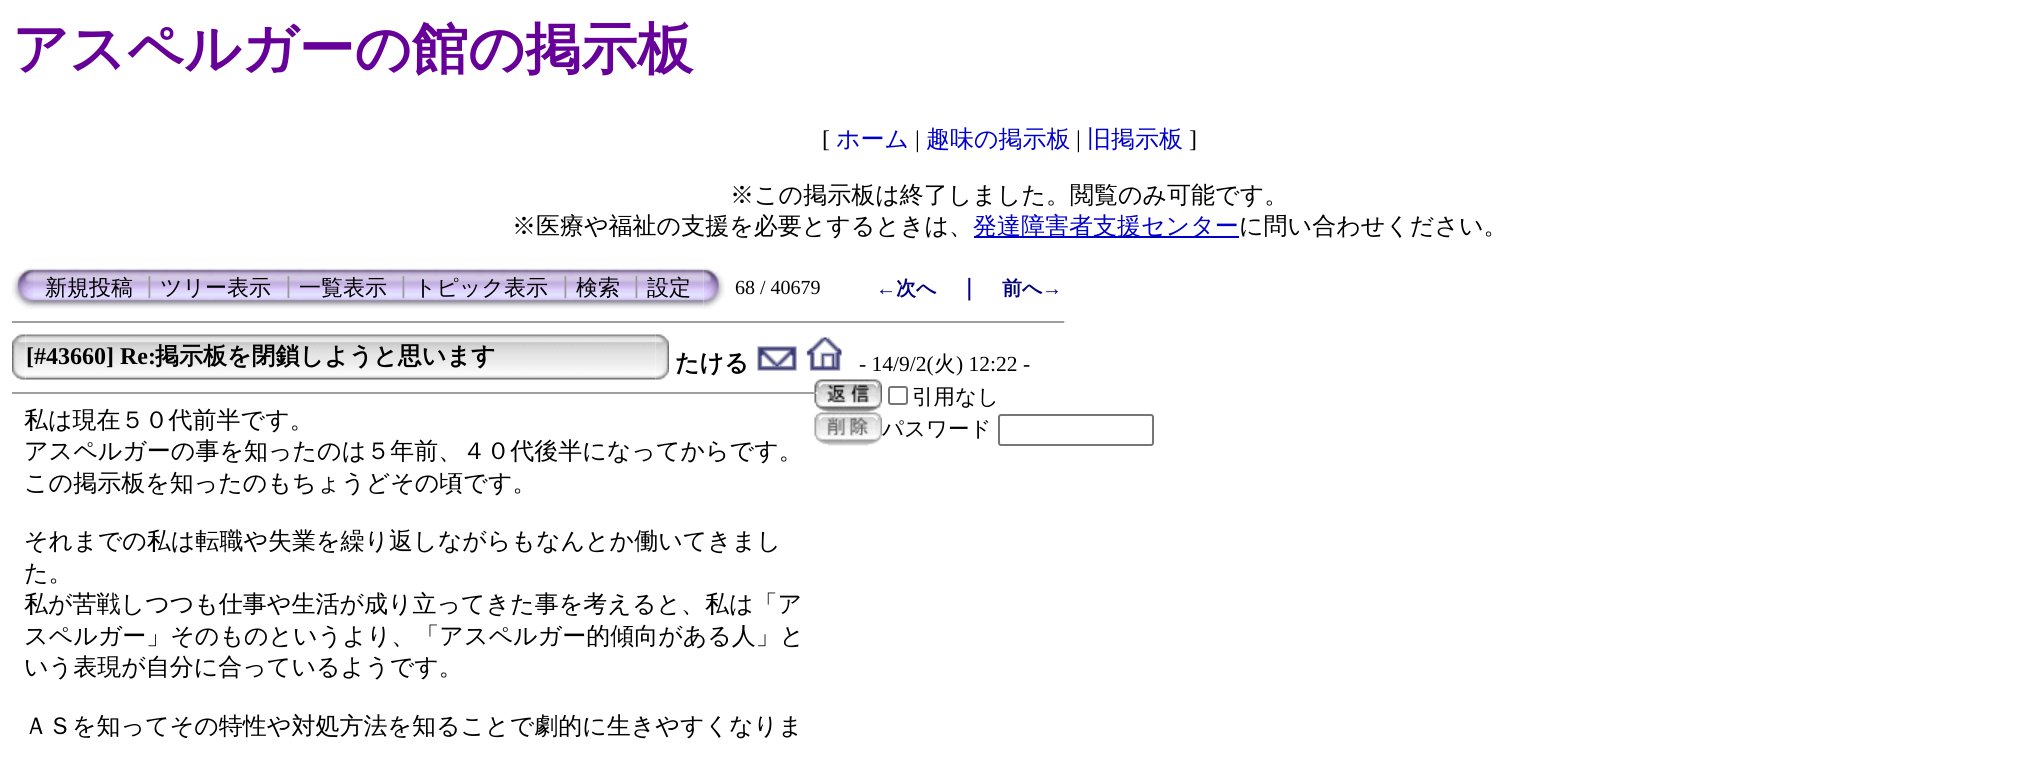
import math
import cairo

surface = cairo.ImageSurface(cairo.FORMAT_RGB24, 2019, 757)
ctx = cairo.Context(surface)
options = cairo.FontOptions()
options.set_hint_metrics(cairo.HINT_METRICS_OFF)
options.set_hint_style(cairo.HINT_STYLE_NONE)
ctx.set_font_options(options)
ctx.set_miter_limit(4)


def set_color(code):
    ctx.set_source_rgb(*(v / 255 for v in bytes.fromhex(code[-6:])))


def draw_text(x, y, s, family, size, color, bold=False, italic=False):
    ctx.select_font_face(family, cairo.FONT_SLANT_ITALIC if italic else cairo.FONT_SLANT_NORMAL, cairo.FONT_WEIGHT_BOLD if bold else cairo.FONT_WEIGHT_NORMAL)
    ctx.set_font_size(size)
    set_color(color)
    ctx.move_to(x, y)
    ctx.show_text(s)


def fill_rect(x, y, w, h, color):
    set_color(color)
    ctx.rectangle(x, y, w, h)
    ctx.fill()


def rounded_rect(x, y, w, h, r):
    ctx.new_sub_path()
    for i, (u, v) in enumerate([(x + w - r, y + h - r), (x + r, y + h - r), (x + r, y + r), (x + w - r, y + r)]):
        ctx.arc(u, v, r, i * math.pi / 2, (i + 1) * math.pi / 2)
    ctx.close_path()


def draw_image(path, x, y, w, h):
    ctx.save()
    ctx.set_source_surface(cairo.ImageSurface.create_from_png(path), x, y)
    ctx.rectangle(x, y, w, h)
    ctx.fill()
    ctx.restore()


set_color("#ffffff")
ctx.paint()
draw_text(12, 68, "アスペルガーの館の掲示板", "WenQuanYi Zen Hei", 56, "#660099", bold=True)
draw_text(822, 147, "[", "Liberation Serif", 24, "#000000")
draw_text(836, 147, "ホーム", "WenQuanYi Zen Hei Medium", 24, "#0000cc")
draw_text(915, 147, "|", "Liberation Serif", 24, "#000000")
draw_text(926, 147, "趣味の掲示板", "WenQuanYi Zen Hei Medium", 24, "#0000cc")
draw_text(1076, 147, "|", "Liberation Serif", 24, "#000000")
draw_text(1087, 147, "旧掲示板", "WenQuanYi Zen Hei Medium", 24, "#0000cc")
draw_text(1189, 147, "]", "Liberation Serif", 24, "#000000")
draw_text(730, 203, "※この掲示板は終了しました。閲覧のみ可能です。", "WenQuanYi Zen Hei Medium", 24, "#000000")
draw_text(512, 234, "※医療や福祉の支援を必要とするときは、", "WenQuanYi Zen Hei Medium", 24, "#000000")
fill_rect(974, 236, 265, 2, "#0000cc")
draw_text(973, 234, "発達障害者支援センター", "WenQuanYi Zen Hei Medium", 24, "#0000cc")
draw_text(1239, 234, "に問い合わせください。", "WenQuanYi Zen Hei Medium", 24, "#000000")
draw_image("assets/img1.png", 12, 268, 21, 41)
draw_image("assets/img2.png", 33, 268, 671, 41)
draw_text(45, 295, "新規投稿", "WenQuanYi Zen Hei Medium", 22, "#000000")
draw_text(138, 295, "┃", "WenQuanYi Zen Hei Medium", 22, "#999999")
draw_text(160, 295, "ツリー表示", "WenQuanYi Zen Hei Medium", 22, "#000000")
draw_text(277, 295, "┃", "WenQuanYi Zen Hei Medium", 22, "#999999")
draw_text(299, 295, "一覧表示", "WenQuanYi Zen Hei Medium", 22, "#000000")
draw_text(392, 295, "┃", "WenQuanYi Zen Hei Medium", 22, "#999999")
draw_text(414, 295, "トピック表示", "WenQuanYi Zen Hei Medium", 22, "#000000")
draw_text(554, 295, "┃", "WenQuanYi Zen Hei Medium", 22, "#999999")
draw_text(576, 295, "検索", "WenQuanYi Zen Hei Medium", 22, "#000000")
draw_text(625, 295, "┃", "WenQuanYi Zen Hei Medium", 22, "#999999")
draw_text(647, 295, "設定", "WenQuanYi Zen Hei Medium", 22, "#000000")
draw_image("assets/img3.png", 703, 268, 22, 41)
draw_text(735, 294, "68 / 40679", "Liberation Serif", 20, "#000000")
draw_text(876, 295, "←", "Liberation Serif", 20, "#000080", bold=True)
draw_text(896, 295, "次へ", "WenQuanYi Zen Hei", 20, "#000080", bold=True)
draw_text(958, 295, "｜", "WenQuanYi Zen Hei", 22, "#000080", bold=True)
draw_text(1002, 295, "前へ", "WenQuanYi Zen Hei", 20, "#000080", bold=True)
draw_text(1042, 295, "→", "Liberation Serif", 20, "#000080", bold=True)
fill_rect(12, 321, 1053, 2, "#9f9f9f")
fill_rect(1064, 321, 2, 2, "#eeeeee")
draw_image("assets/img5.png", 25, 334, 631, 46)
draw_image("assets/img4.png", 12, 334, 14, 46)
draw_text(26, 364, "[#43660] Re:", "Liberation Serif", 24, "#000000", bold=True)
draw_text(155, 364, "掲示板を閉鎖しようと思います", "WenQuanYi Zen Hei", 24, "#000000", bold=True)
draw_image("assets/img6.png", 655, 334, 14, 46)
draw_text(675, 371, "たける", "WenQuanYi Zen Hei", 24, "#000000", bold=True)
draw_image("assets/img7.png", 757, 346, 40, 25)
draw_image("assets/img8.png", 806, 337, 36, 34)
draw_text(859, 371, "- 14/9/2(", "Liberation Serif", 21.5, "#000000")
draw_text(934, 371, "火", "WenQuanYi Zen Hei Medium", 21.5, "#000000")
draw_text(956, 371, ") 12:22 -", "Liberation Serif", 21.5, "#000000")
draw_text(24, 428, "私は現在５０代前半です。", "WenQuanYi Zen Hei Medium", 24, "#000000")
draw_text(24, 459, "アスペルガーの事を知ったのは５年前、４０代後半になってからです。", "WenQuanYi Zen Hei Medium", 24, "#000000")
draw_text(24, 491, "この掲示板を知ったのもちょうどその頃です。", "WenQuanYi Zen Hei Medium", 24, "#000000")
draw_text(24, 549, "それまでの私は転職や失業を繰り返しながらもなんとか働いてきまし", "WenQuanYi Zen Hei Medium", 24, "#000000")
draw_text(24, 581, "た。", "WenQuanYi Zen Hei Medium", 24, "#000000")
draw_text(24, 612, "私が苦戦しつつも仕事や生活が成り立ってきた事を考えると、私は「ア", "WenQuanYi Zen Hei Medium", 24, "#000000")
draw_text(24, 644, "スペルガー」そのものというより、「アスペルガー的傾向がある人」と", "WenQuanYi Zen Hei Medium", 24, "#000000")
draw_text(24, 675, "いう表現が自分に合っているようです。", "WenQuanYi Zen Hei Medium", 24, "#000000")
draw_text(24, 734, "ＡＳを知ってその特性や対処方法を知ることで劇的に生きやすくなりま", "WenQuanYi Zen Hei Medium", 24, "#000000")
draw_image("assets/img9.png", 814, 379, 68, 34)
fill_rect(12, 392, 806, 2, "#9f9f9f")
fill_rect(816, 392, 2, 2, "#eeeeee")
rounded_rect(889, 387, 18, 17, 2)
set_color("#767676")
ctx.stroke()
draw_text(912, 404, "引用なし", "WenQuanYi Zen Hei Medium", 21.5, "#000000")
draw_image("assets/img10.png", 814, 412, 68, 34)
draw_text(882, 436, "パスワード", "WenQuanYi Zen Hei Medium", 21.5, "#000000")
rounded_rect(999, 415, 154, 30, 2)
set_color("#767676")
ctx.stroke()
surface.write_to_png("output.png")
